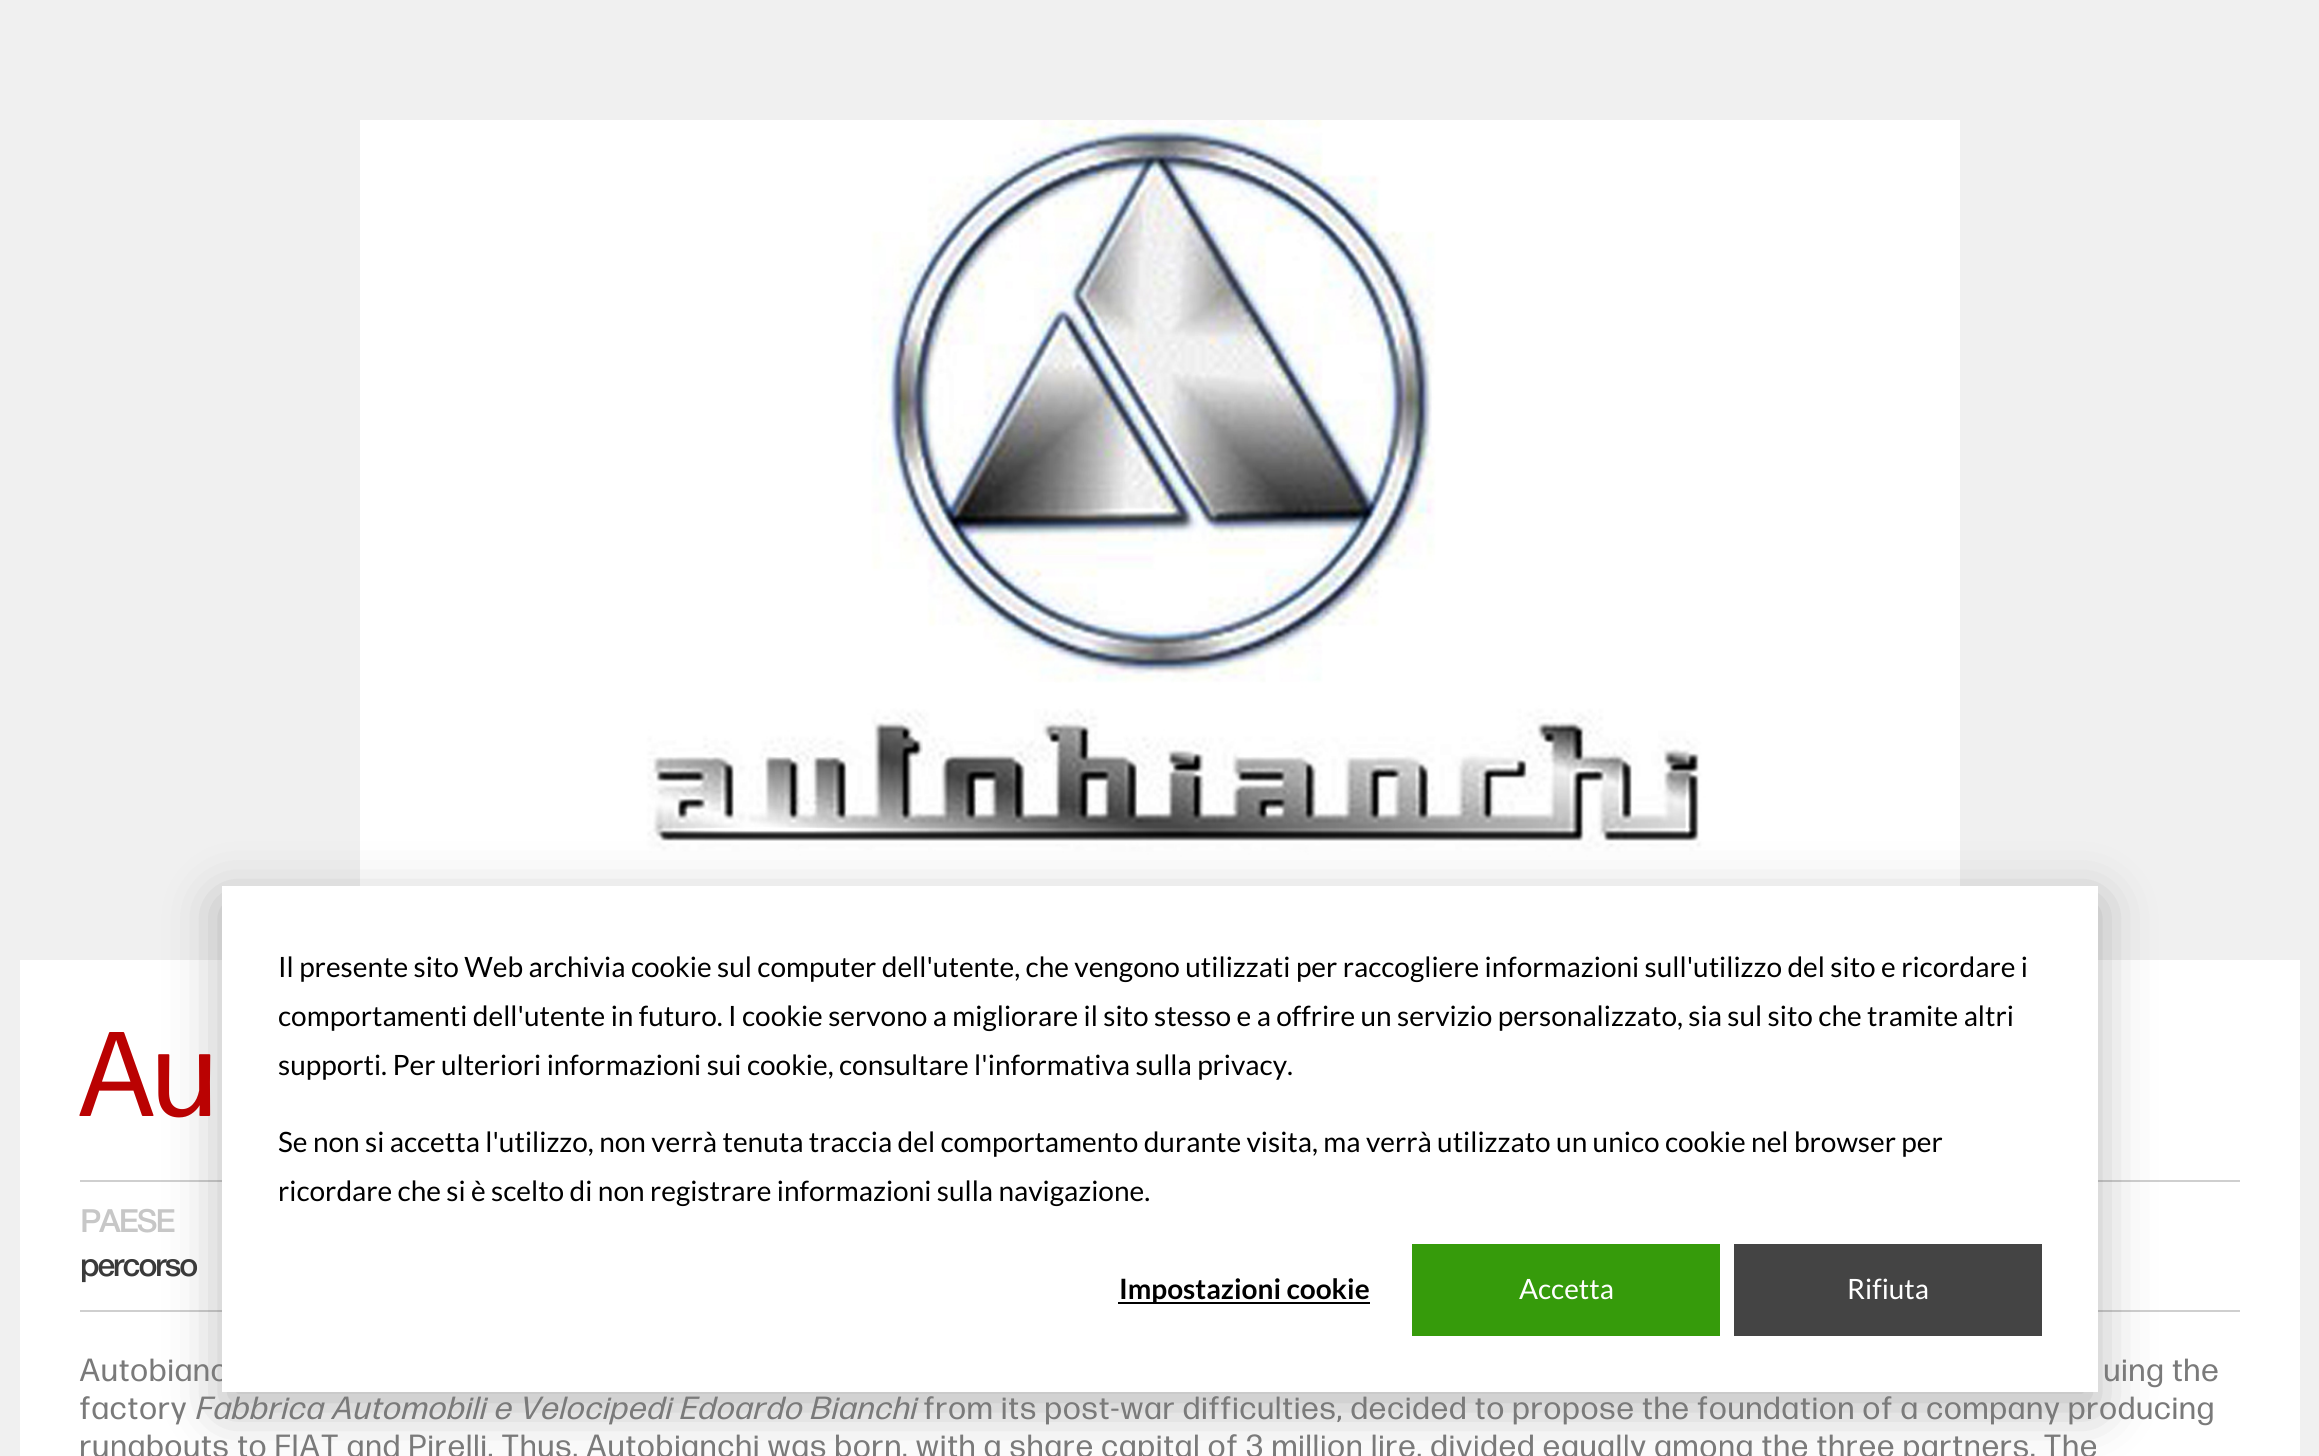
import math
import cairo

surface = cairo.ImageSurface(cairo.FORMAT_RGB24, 2319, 1456)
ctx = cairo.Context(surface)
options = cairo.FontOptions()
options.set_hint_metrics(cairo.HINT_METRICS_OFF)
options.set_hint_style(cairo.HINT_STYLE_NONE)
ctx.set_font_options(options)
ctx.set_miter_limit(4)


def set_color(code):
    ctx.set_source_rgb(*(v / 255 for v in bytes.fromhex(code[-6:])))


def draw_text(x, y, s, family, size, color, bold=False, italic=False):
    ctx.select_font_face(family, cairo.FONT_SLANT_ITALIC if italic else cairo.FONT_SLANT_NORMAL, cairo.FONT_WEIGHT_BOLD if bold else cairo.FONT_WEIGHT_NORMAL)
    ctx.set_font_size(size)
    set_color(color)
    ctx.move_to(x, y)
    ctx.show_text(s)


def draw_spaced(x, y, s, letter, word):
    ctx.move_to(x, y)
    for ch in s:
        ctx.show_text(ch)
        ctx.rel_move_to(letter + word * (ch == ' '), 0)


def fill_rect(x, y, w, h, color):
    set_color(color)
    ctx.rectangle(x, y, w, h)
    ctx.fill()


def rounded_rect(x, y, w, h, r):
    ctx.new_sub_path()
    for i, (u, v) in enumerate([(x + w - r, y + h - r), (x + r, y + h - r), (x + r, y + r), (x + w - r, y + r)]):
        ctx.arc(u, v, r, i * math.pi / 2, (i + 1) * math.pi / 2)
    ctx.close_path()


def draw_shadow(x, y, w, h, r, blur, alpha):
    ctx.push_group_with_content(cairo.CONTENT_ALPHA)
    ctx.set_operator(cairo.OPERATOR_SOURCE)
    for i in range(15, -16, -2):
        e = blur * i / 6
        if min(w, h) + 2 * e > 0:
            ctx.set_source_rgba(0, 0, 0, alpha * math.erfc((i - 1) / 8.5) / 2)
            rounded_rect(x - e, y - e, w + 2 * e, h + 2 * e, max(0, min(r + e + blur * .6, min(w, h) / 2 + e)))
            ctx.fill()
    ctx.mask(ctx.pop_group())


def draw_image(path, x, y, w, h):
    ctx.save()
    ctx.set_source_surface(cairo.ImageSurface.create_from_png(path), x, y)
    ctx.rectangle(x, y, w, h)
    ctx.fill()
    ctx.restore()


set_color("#f0f0f0")
ctx.paint()
draw_image("assets/img1.png", 360, 120, 1600, 766)
fill_rect(20, 960, 2280, 496, "#ffffff")
fill_rect(80, 1180, 2160, 2, "#cfcfcf")
fill_rect(80, 1310, 2160, 2, "#cfcfcf")
set_color("#000000")
draw_shadow(222, 902, 1876, 506, 0, 28, 0.28)
ctx.select_font_face("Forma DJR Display")
ctx.set_font_size(32)
set_color("#7a7a7a")
draw_spaced(80, 1381, "Autobianc", 2, 0)
fill_rect(222, 886, 1876, 506, "#ffffff")
draw_text(278, 977, "Il presente sito Web archivia cookie sul computer dell'utente, che vengono utilizzati per raccogliere informazioni sull'utilizzo del sito e ricordare i", "Lato", 28, "#000000")
draw_text(278, 1026, "comportamenti dell'utente in futuro. I cookie servono a migliorare il sito stesso e a offrire un servizio personalizzato, sia sul sito che tramite altri", "Lato", 28, "#000000")
draw_text(278, 1075, "supporti. Per ulteriori informazioni sui cookie, consultare l'informativa sulla privacy.", "Lato", 28, "#000000")
draw_text(278, 1152, "Se non si accetta l'utilizzo, non verrà tenuta traccia del comportamento durante visita, ma verrà utilizzato un unico cookie nel browser per", "Lato", 28, "#000000")
draw_text(278, 1201, "ricordare che si è scelto di non registrare informazioni sulla navigazione.", "Lato", 28, "#000000")
fill_rect(1118, 1302, 252, 2, "#000000")
draw_text(1119, 1299, "Impostazioni cookie", "Lato", 28, "#000000", bold=True)
fill_rect(1412, 1244, 308, 92, "#369b0b")
draw_text(1519, 1299, "Accetta", "Lato", 28, "#ffffff")
fill_rect(1734, 1244, 308, 92, "#444444")
draw_text(1847, 1299, "Rifiuta", "Lato", 28, "#ffffff")
ctx.select_font_face("Forma DJR Display")
ctx.set_font_size(120)
set_color("#ba0202")
draw_spaced(80, 1116, "Au", 2, 0)
ctx.select_font_face("Helvetica Neue Medium")
ctx.set_font_size(32)
set_color("#c7c7c7")
draw_spaced(80, 1232, "PAESE", -2, 0)
set_color("#3a3a3a")
draw_spaced(80, 1276, "percorso", -2, 0)
ctx.select_font_face("Forma DJR Display")
set_color("#7a7a7a")
draw_spaced(2104, 1381, "uing the", 2, 0)
draw_spaced(80, 1419, "factory", 2, 0)
ctx.select_font_face("Forma DJR Display", cairo.FONT_SLANT_ITALIC)
draw_spaced(195, 1419, "Fabbrica Automobili e Velocipedi Edoardo Bianchi", 2, 0)
ctx.select_font_face("Forma DJR Display")
draw_spaced(924, 1419, "from its post-war difficulties, decided to propose the foundation of a company producing", 2, 0)
draw_spaced(80, 1457, "runabouts to FIAT and Pirelli. Thus, Autobianchi was born, with a share capital of 3 million lire, divided equally among the three partners. The", 2, 0)
surface.write_to_png("output.png")
